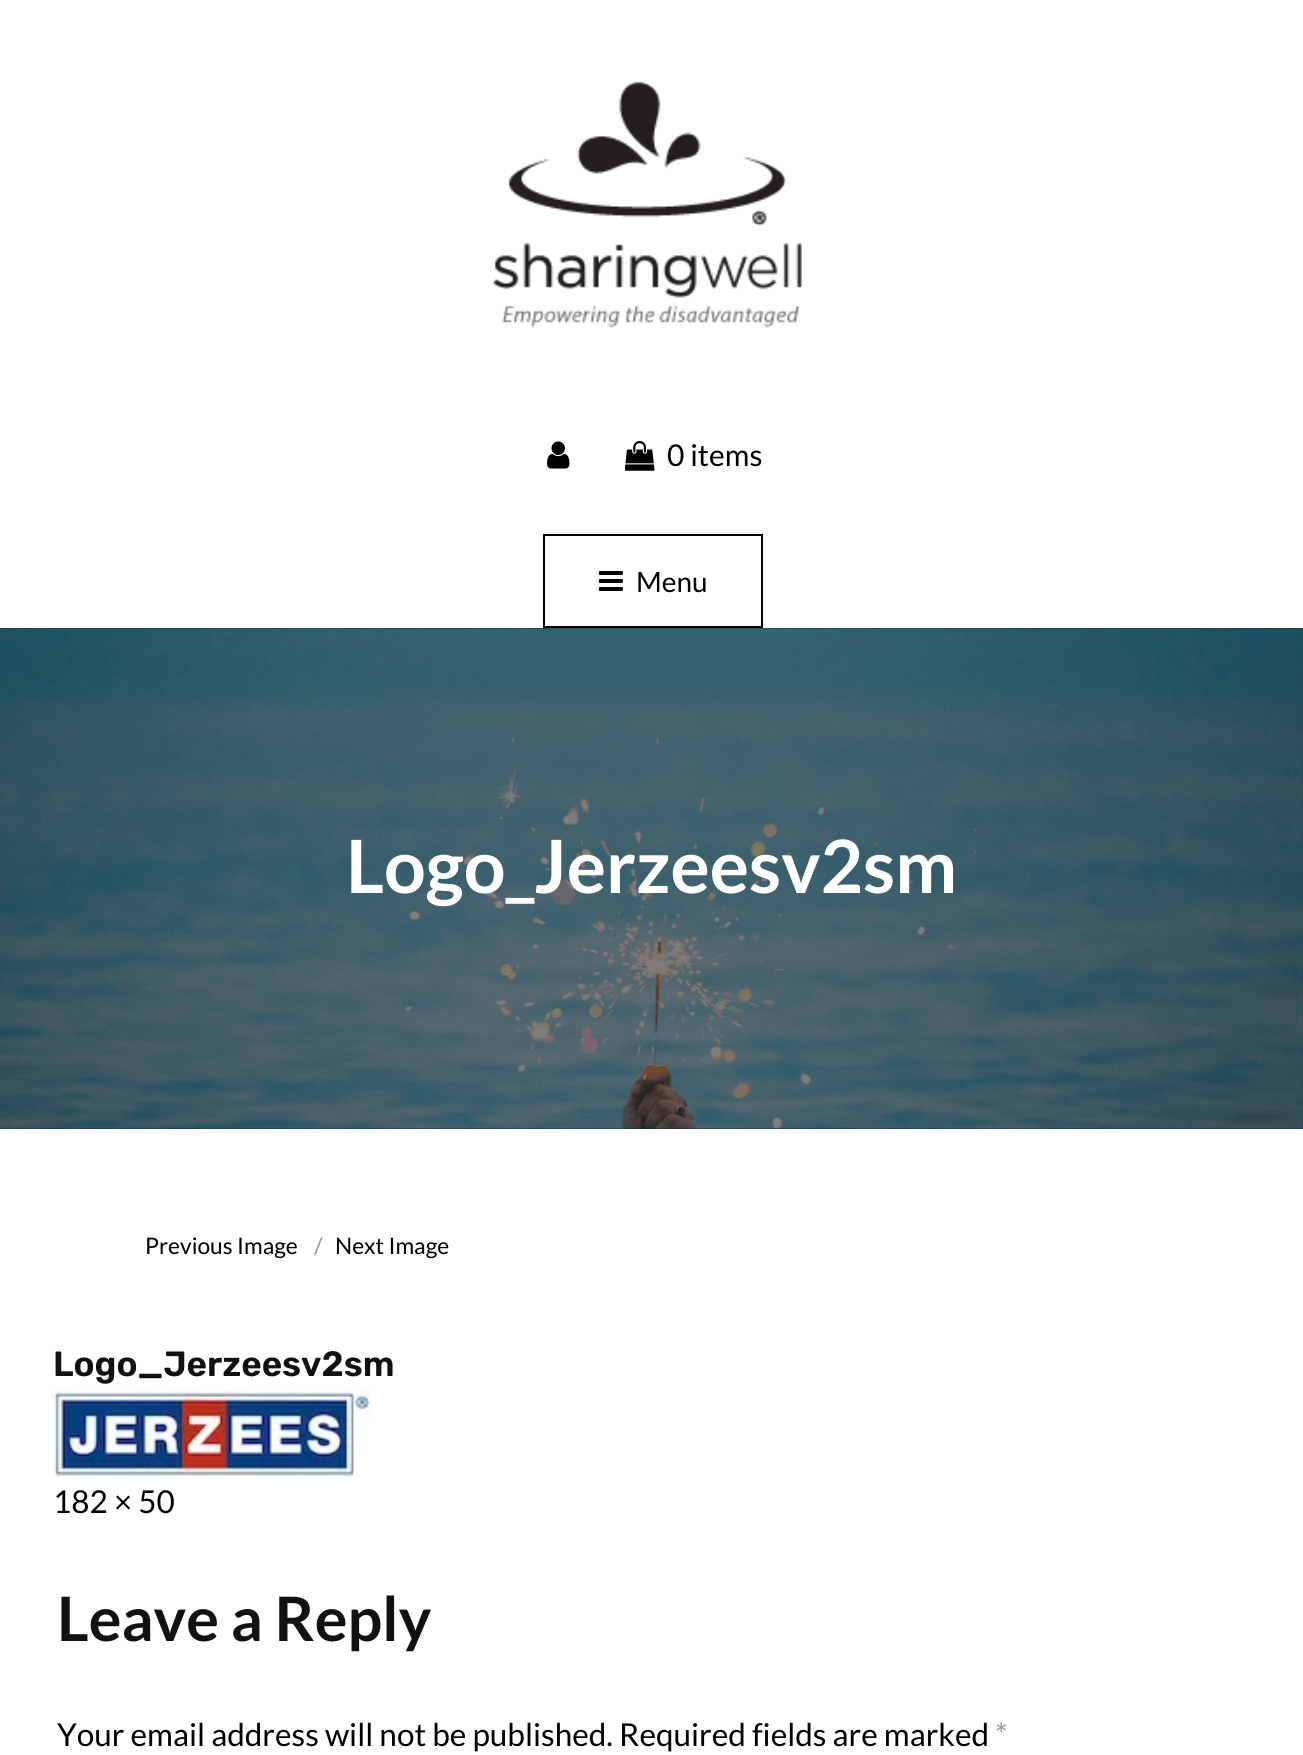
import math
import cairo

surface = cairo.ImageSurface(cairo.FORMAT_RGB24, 1303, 1755)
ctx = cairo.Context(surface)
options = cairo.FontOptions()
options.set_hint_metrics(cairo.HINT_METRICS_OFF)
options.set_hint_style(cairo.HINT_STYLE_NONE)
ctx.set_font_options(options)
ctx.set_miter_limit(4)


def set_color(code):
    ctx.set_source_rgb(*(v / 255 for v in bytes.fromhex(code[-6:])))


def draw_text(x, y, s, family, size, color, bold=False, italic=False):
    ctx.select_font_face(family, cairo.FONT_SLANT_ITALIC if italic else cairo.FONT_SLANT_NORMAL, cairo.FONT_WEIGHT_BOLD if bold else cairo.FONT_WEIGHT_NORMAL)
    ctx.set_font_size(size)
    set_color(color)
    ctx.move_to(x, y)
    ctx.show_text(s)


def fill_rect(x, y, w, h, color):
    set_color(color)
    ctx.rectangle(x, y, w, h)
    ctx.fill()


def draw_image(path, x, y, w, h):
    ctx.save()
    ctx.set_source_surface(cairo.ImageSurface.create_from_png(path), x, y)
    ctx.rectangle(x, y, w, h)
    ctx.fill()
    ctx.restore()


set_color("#ffffff")
ctx.paint()
draw_image("assets/img1.png", 493, 81, 309, 247)
draw_image("assets/img2.png", 547, 441, 23, 28)
draw_image("assets/img3.png", 625, 441, 30, 30)
draw_text(667, 466, "0 items", "Lato", 30, "#000000")
ctx.rectangle(544, 535, 218, 92)
ctx.stroke()
draw_image("assets/img4.png", 598, 571, 25, 20)
draw_text(636, 592, "Menu", "Lato", 28, "#000000")
fill_rect(0, 628, 1303, 501, "#003951")
draw_image("assets/img5.png", 0, 628, 1303, 501)
draw_text(346, 893, "Logo_Jerzeesv2sm", "Lato", 73.5, "#ffffff", bold=True)
draw_text(145, 1254, "Previous Image", "Lato", 22.75, "#000000")
draw_text(314, 1254, "/", "Lato", 22.75, "#999999")
draw_text(335, 1254, "Next Image", "Lato", 22.75, "#000000")
draw_text(53, 1376, "Logo_Jerzeesv2sm", "Rubik SemiBold", 35, "#111111")
draw_image("assets/img6.png", 52, 1389, 319, 88)
draw_text(53, 1513, "182 × 50", "Lato", 31.5, "#000000")
draw_text(57, 1641, "Leave a Reply", "Lato", 61.25, "#111111", bold=True)
draw_text(57, 1746, "Your email address will not be published. Required fields are marked", "Lato", 31.5, "#000000")
draw_text(995, 1746, "*", "Lato", 31.5, "#999999")
surface.write_to_png("output.png")
